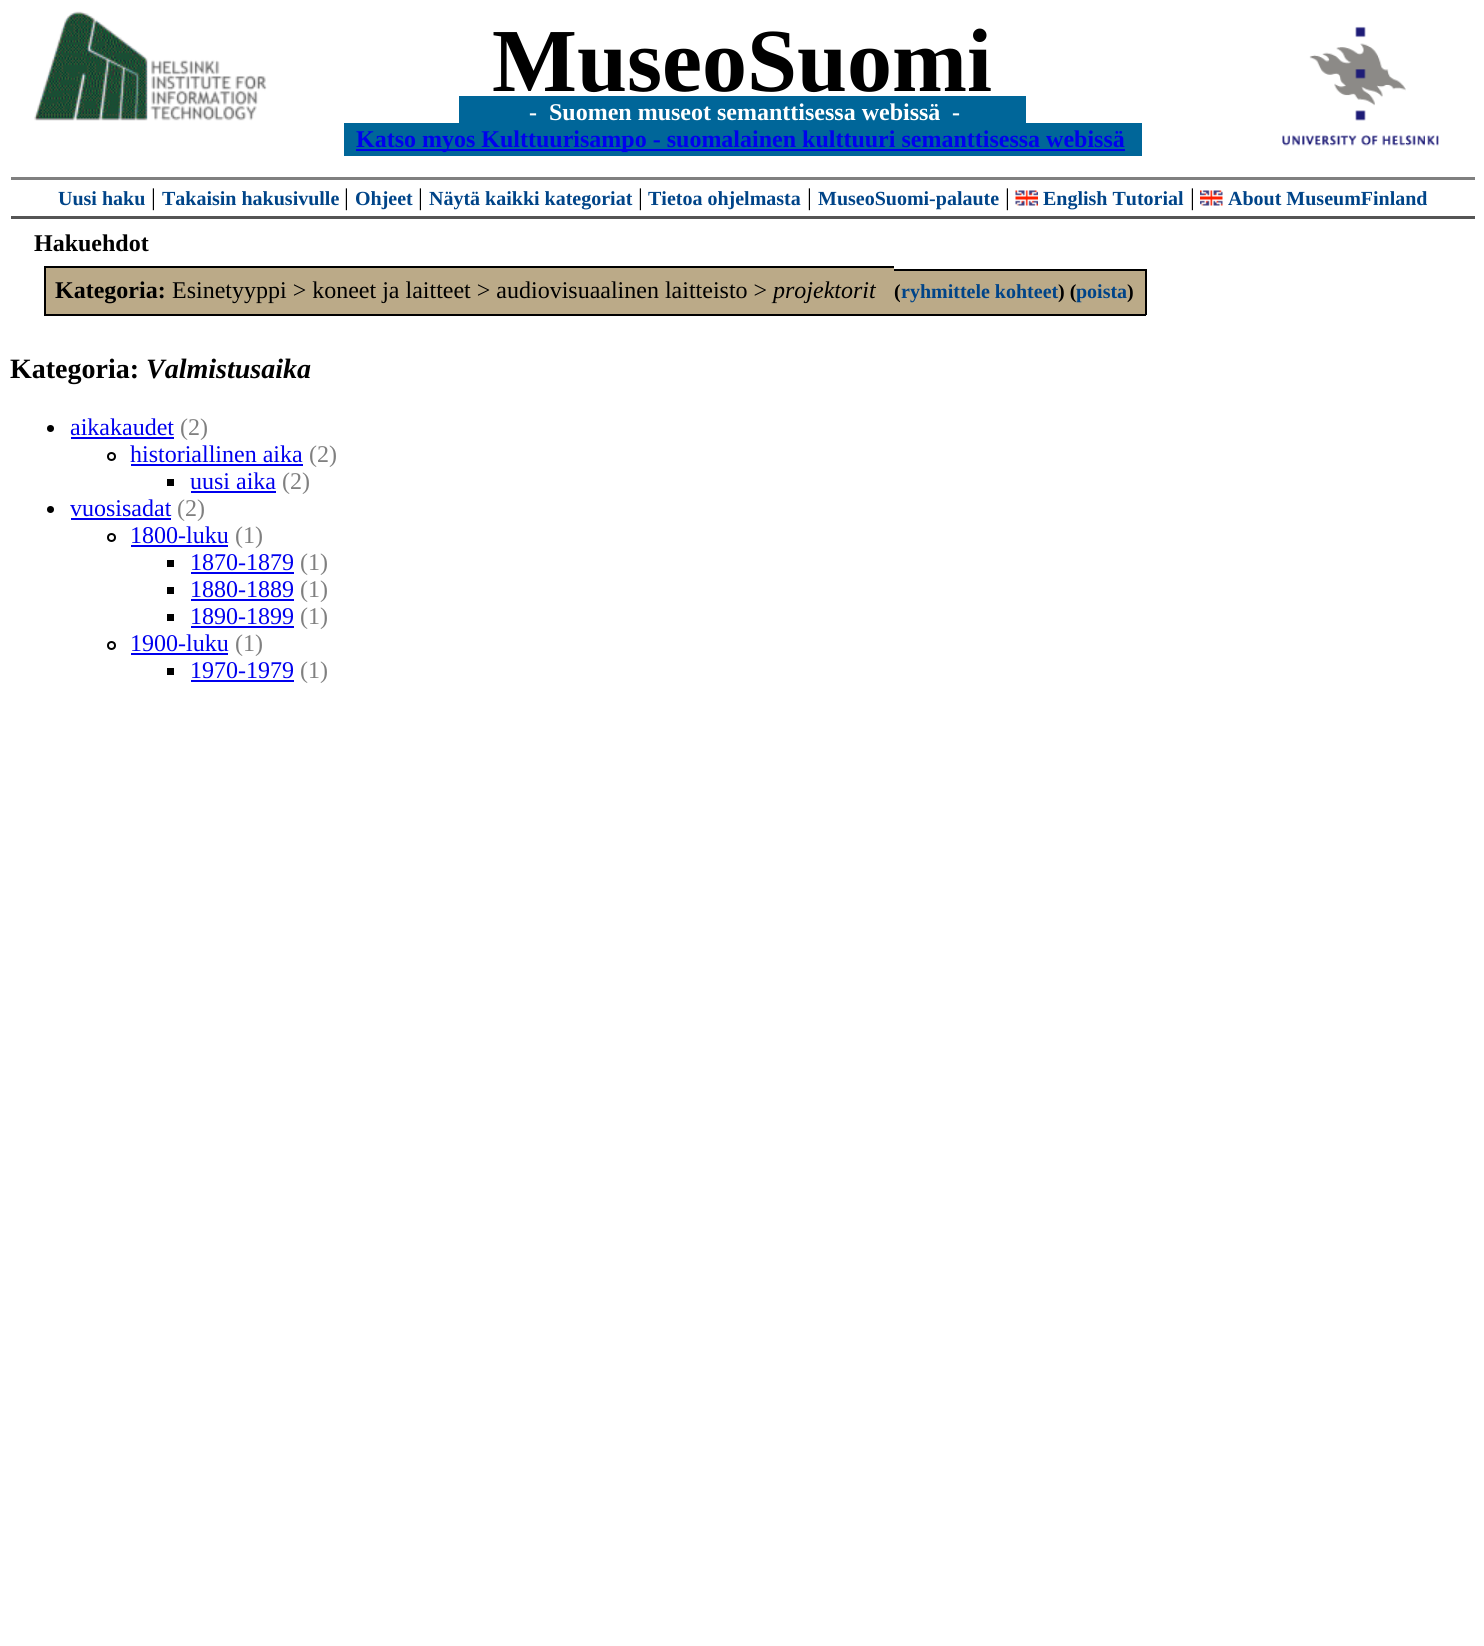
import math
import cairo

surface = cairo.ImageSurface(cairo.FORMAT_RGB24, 1484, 1646)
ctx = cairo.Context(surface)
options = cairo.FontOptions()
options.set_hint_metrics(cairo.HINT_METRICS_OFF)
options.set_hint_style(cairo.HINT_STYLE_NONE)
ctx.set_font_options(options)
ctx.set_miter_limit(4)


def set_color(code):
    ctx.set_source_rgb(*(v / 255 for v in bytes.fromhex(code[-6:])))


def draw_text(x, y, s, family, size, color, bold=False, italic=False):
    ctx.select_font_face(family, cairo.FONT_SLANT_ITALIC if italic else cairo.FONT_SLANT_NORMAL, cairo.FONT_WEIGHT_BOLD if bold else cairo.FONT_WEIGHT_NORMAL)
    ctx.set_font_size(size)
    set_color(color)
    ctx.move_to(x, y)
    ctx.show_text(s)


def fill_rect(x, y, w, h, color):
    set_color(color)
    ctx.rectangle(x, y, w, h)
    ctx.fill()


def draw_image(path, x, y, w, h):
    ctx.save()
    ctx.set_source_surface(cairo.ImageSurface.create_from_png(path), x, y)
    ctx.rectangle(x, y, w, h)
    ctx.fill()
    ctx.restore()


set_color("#ffffff")
ctx.paint()
draw_image("assets/img1.png", 34, 11, 233, 110)
draw_text(492, 91, "MuseoSuomi", "Liberation Serif", 90, "#000000", bold=True)
draw_image("assets/img2.png", 1282, 26, 157, 120)
fill_rect(459, 96, 567, 27, "#006699")
draw_text(529, 120, "-", "Liberation Serif", 24, "#ffffff", bold=True)
draw_text(549, 120, "Suomen museot semanttisessa webissä", "Liberation Serif", 24, "#ffffff", bold=True)
draw_text(952, 120, "-", "Liberation Serif", 24, "#ffffff", bold=True)
fill_rect(344, 123, 798, 33, "#006699")
fill_rect(356, 149, 769, 2, "#0000ee")
draw_text(356, 147, "Katso myos Kulttuurisampo - suomalainen kulttuuri semanttisessa webissä", "Liberation Serif", 24, "#0000ee", bold=True)
fill_rect(11, 177, 1464, 3, "#808080")
fill_rect(11, 216, 1464, 3, "#555555")
draw_text(58, 205, "Uusi haku", "Liberation Serif", 20, "#004488", bold=True)
draw_text(151, 205, "|", "Liberation Serif", 24, "#000000")
draw_text(162, 205, "Takaisin hakusivulle", "Liberation Serif", 20, "#004488", bold=True)
draw_text(344, 205, "|", "Liberation Serif", 24, "#000000")
draw_text(355, 205, "Ohjeet", "Liberation Serif", 20, "#004488", bold=True)
draw_text(418, 205, "|", "Liberation Serif", 24, "#000000")
draw_text(429, 205, "Näytä kaikki kategoriat", "Liberation Serif", 20, "#004488", bold=True)
draw_text(638, 205, "|", "Liberation Serif", 24, "#000000")
draw_text(648, 205, "Tietoa ohjelmasta", "Liberation Serif", 20, "#004488", bold=True)
draw_text(807, 205, "|", "Liberation Serif", 24, "#000000")
draw_text(818, 205, "MuseoSuomi-palaute", "Liberation Serif", 20, "#004488", bold=True)
draw_text(1005, 205, "|", "Liberation Serif", 24, "#000000")
draw_image("assets/img3.png", 1015, 190, 23, 16)
draw_text(1043, 205, "English Tutorial", "Liberation Serif", 20, "#004488", bold=True)
draw_text(1190, 205, "|", "Liberation Serif", 24, "#000000")
draw_image("assets/img4.png", 1200, 190, 23, 16)
draw_text(1228, 205, "About MuseumFinland", "Liberation Serif", 20, "#004488", bold=True)
draw_text(34, 251, "Hakuehdot", "Liberation Serif", 24, "#000000", bold=True)
fill_rect(46, 268, 848, 46, "#bbaa88")
draw_text(55, 298, "Kategoria:", "Liberation Serif", 24, "#000000", bold=True)
fill_rect(44, 266, 850, 2, "#000000")
fill_rect(44, 314, 850, 2, "#000000")
fill_rect(44, 266, 2, 49, "#000000")
draw_text(172, 298, "Esinetyyppi > koneet ja laitteet > audiovisuaalinen laitteisto >", "Liberation Serif", 24, "#000000")
draw_text(773, 298, "projektorit", "Liberation Serif", 24, "#000000", italic=True)
fill_rect(894, 269, 6, 46, "#bbaa88")
draw_text(894, 298, "(", "Liberation Serif", 20, "#000000", bold=True)
fill_rect(894, 269, 176, 2, "#000000")
fill_rect(894, 314, 176, 2, "#000000")
fill_rect(900, 271, 170, 43, "#bbaa88")
draw_text(901, 298, "ryhmittele kohteet", "Liberation Serif", 20, "#004488", bold=True)
fill_rect(1070, 269, 6, 46, "#bbaa88")
draw_text(1058, 298, ") (", "Liberation Serif", 20, "#000000", bold=True)
fill_rect(1070, 269, 76, 2, "#000000")
fill_rect(1070, 314, 57, 2, "#000000")
fill_rect(1076, 271, 69, 43, "#bbaa88")
draw_text(1076, 298, "poista", "Liberation Serif", 20, "#004488", bold=True)
fill_rect(1145, 269, 2, 46, "#000000")
fill_rect(1127, 314, 19, 2, "#000000")
draw_text(1127, 298, ")", "Liberation Serif", 20, "#000000", bold=True)
draw_text(10, 378, "Kategoria:", "Liberation Serif", 28, "#000000", bold=True)
draw_text(146, 378, "Valmistusaika", "Liberation Serif", 28, "#000000", bold=True, italic=True)
ctx.new_path()
ctx.arc(50.5, 428.5, 3.5, 0, 2 * math.pi)
ctx.fill()
draw_text(70, 435, "aikakaudet", "Liberation Serif", 24, "#0000ee")
fill_rect(71, 437, 103, 2, "#0000ee")
draw_text(180, 435, "(2)", "Liberation Serif", 24, "#808080")
ctx.new_path()
ctx.arc(111.5, 456.5, 3.5, 0, 2 * math.pi)
set_color("#000000")
ctx.stroke()
draw_text(130, 462, "historiallinen aika", "Liberation Serif", 24, "#0000ee")
fill_rect(131, 464, 172, 2, "#0000ee")
draw_text(309, 462, "(2)", "Liberation Serif", 24, "#808080")
fill_rect(167, 479, 7, 7, "#000000")
draw_text(190, 489, "uusi aika", "Liberation Serif", 24, "#0000ee")
fill_rect(191, 491, 85, 2, "#0000ee")
draw_text(282, 489, "(2)", "Liberation Serif", 24, "#808080")
set_color("#000000")
ctx.new_path()
ctx.arc(50.5, 509.5, 3.5, 0, 2 * math.pi)
ctx.fill()
draw_text(70, 516, "vuosisadat", "Liberation Serif", 24, "#0000ee")
fill_rect(71, 518, 100, 2, "#0000ee")
draw_text(177, 516, "(2)", "Liberation Serif", 24, "#808080")
ctx.new_path()
ctx.arc(111.5, 537.5, 3.5, 0, 2 * math.pi)
set_color("#000000")
ctx.stroke()
draw_text(130, 543, "1800-luku", "Liberation Serif", 24, "#0000ee")
fill_rect(131, 545, 97, 2, "#0000ee")
draw_text(235, 543, "(1)", "Liberation Serif", 24, "#808080")
fill_rect(167, 560, 7, 7, "#000000")
draw_text(190, 570, "1870-1879", "Liberation Serif", 24, "#0000ee")
fill_rect(191, 572, 103, 2, "#0000ee")
draw_text(300, 570, "(1)", "Liberation Serif", 24, "#808080")
fill_rect(167, 587, 7, 7, "#000000")
draw_text(190, 597, "1880-1889", "Liberation Serif", 24, "#0000ee")
fill_rect(191, 599, 103, 2, "#0000ee")
draw_text(300, 597, "(1)", "Liberation Serif", 24, "#808080")
fill_rect(167, 614, 7, 7, "#000000")
draw_text(190, 624, "1890-1899", "Liberation Serif", 24, "#0000ee")
fill_rect(191, 626, 103, 2, "#0000ee")
draw_text(300, 624, "(1)", "Liberation Serif", 24, "#808080")
ctx.new_path()
ctx.arc(111.5, 645.5, 3.5, 0, 2 * math.pi)
set_color("#000000")
ctx.stroke()
draw_text(130, 651, "1900-luku", "Liberation Serif", 24, "#0000ee")
fill_rect(131, 653, 97, 2, "#0000ee")
draw_text(235, 651, "(1)", "Liberation Serif", 24, "#808080")
fill_rect(167, 668, 7, 7, "#000000")
draw_text(190, 678, "1970-1979", "Liberation Serif", 24, "#0000ee")
fill_rect(191, 680, 103, 2, "#0000ee")
draw_text(300, 678, "(1)", "Liberation Serif", 24, "#808080")
surface.write_to_png("output.png")
